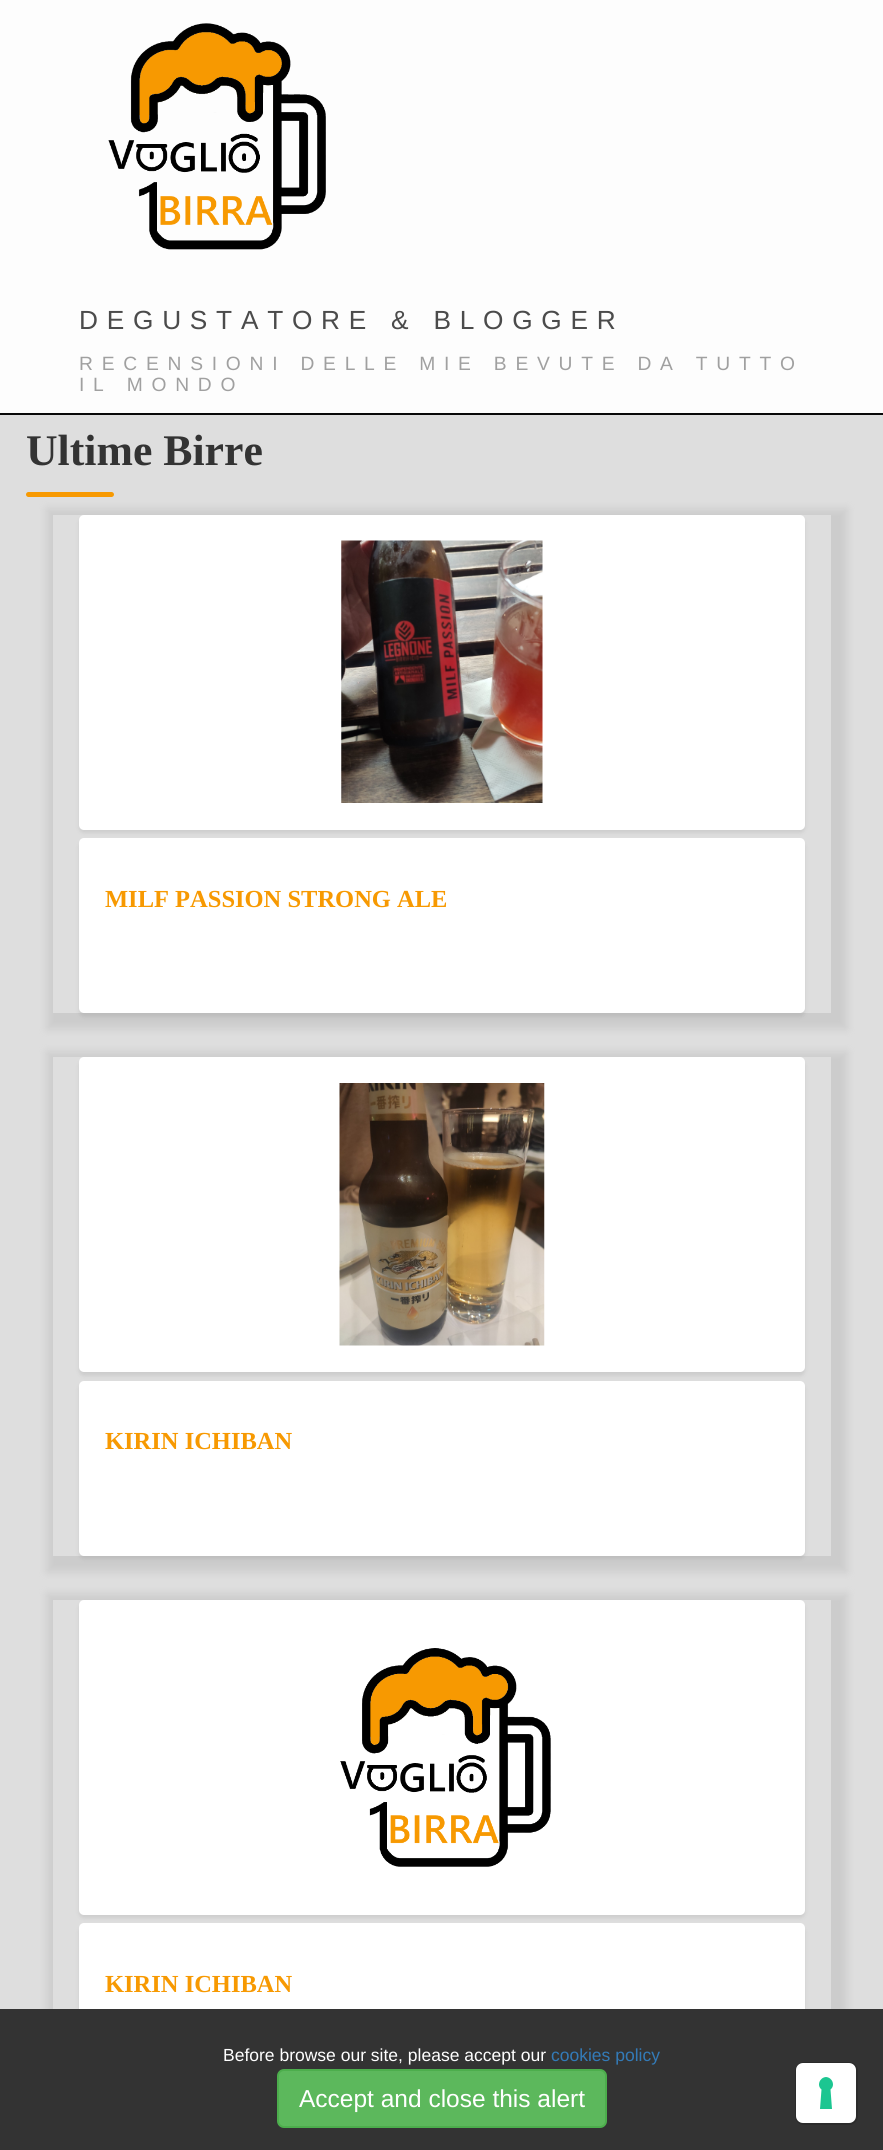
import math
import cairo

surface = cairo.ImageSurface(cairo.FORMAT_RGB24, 883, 2150)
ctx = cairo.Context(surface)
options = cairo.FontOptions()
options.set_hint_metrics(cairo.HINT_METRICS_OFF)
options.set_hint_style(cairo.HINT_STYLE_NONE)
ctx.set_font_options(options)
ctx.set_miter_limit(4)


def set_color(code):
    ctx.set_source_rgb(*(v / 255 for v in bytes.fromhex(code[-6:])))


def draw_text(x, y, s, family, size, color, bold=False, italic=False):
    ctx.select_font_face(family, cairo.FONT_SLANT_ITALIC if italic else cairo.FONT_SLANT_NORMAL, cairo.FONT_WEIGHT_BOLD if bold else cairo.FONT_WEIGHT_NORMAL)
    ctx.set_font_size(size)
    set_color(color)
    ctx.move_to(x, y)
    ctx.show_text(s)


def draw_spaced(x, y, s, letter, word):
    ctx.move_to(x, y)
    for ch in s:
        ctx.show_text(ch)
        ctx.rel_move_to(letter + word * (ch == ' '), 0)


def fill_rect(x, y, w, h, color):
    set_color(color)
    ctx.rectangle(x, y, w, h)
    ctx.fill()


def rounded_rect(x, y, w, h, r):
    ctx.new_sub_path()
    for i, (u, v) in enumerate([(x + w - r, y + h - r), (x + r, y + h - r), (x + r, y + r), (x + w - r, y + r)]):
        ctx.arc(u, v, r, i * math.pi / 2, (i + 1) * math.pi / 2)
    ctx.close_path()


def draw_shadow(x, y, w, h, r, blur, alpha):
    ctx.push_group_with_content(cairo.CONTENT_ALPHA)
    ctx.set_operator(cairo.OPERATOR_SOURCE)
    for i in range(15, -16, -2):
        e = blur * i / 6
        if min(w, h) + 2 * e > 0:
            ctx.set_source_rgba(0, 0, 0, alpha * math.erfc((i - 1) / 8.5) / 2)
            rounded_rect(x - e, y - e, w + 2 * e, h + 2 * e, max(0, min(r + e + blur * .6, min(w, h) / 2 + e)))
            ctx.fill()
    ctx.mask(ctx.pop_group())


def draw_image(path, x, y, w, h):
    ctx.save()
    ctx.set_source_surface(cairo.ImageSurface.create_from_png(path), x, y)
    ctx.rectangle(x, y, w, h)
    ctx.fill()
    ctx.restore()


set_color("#dedede")
ctx.paint()
fill_rect(0, 0, 883, 413, "#fdfdfd")
fill_rect(0, 413, 883, 2, "#080808")
draw_image("assets/img1.png", 108, 23, 218, 227)
ctx.select_font_face("Liberation Sans")
ctx.set_font_size(26.25)
set_color("#4b4b4b")
draw_spaced(79, 329, "DEGUSTATORE & BLOGGER", 8.75, 0)
ctx.set_font_size(19.25)
set_color("#a0a0a0")
draw_spaced(79, 370, "RECENSIONI DELLE MIE BEVUTE DA TUTTO", 8.75, 0)
draw_spaced(79, 391, "IL MONDO", 8.75, 0)
draw_text(26, 465, "Ultime Birre", "Liberation Serif", 43.75, "#333333", bold=True)
set_color("#f79901")
rounded_rect(26, 492, 88, 5, 2.5)
ctx.fill()
ctx.save()
ctx.set_fill_rule(cairo.FILL_RULE_EVEN_ODD)
ctx.new_path()
ctx.move_to(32, 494)
ctx.line_to(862, 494)
ctx.line_to(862, 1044)
ctx.line_to(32, 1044)
ctx.close_path()
ctx.move_to(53, 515)
ctx.line_to(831, 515)
ctx.line_to(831, 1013)
ctx.line_to(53, 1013)
ctx.close_path()
ctx.clip()
set_color("#cccccc")
draw_shadow(47, 509, 800, 520, 0, 4.5, 1)
ctx.restore()
set_color("#2e2e2e")
draw_shadow(79, 842, 726, 175, 5, 2, 0.1)
set_color("#ffffff")
rounded_rect(79, 838, 726, 175, 5)
ctx.fill()
set_color("#2e2e2e")
draw_shadow(79, 518, 726, 315, 5, 2, 0.1)
set_color("#ffffff")
rounded_rect(79, 515, 726, 315, 5)
ctx.fill()
draw_image("assets/img2.png", 341, 540, 202, 263)
draw_text(105, 907, "MILF PASSION STRONG ALE", "Liberation Serif", 24.5, "#f79901", bold=True)
ctx.save()
ctx.set_fill_rule(cairo.FILL_RULE_EVEN_ODD)
ctx.new_path()
ctx.move_to(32, 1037)
ctx.line_to(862, 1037)
ctx.line_to(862, 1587)
ctx.line_to(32, 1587)
ctx.close_path()
ctx.move_to(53, 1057)
ctx.line_to(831, 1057)
ctx.line_to(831, 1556)
ctx.line_to(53, 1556)
ctx.close_path()
ctx.clip()
set_color("#cccccc")
draw_shadow(47, 1052, 800, 520, 0, 4.5, 1)
ctx.restore()
set_color("#2e2e2e")
draw_shadow(79, 1384, 726, 175, 5, 2, 0.1)
set_color("#ffffff")
rounded_rect(79, 1381, 726, 175, 5)
ctx.fill()
set_color("#2e2e2e")
draw_shadow(79, 1061, 726, 315, 5, 2, 0.1)
set_color("#ffffff")
rounded_rect(79, 1057, 726, 315, 5)
ctx.fill()
draw_image("assets/img3.png", 339, 1083, 206, 263)
draw_text(105, 1449, "KIRIN ICHIBAN", "Liberation Serif", 24.5, "#f79901", bold=True)
ctx.save()
ctx.set_fill_rule(cairo.FILL_RULE_EVEN_ODD)
ctx.new_path()
ctx.move_to(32, 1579)
ctx.line_to(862, 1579)
ctx.line_to(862, 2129)
ctx.line_to(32, 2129)
ctx.close_path()
ctx.move_to(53, 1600)
ctx.line_to(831, 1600)
ctx.line_to(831, 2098)
ctx.line_to(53, 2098)
ctx.close_path()
ctx.clip()
set_color("#cccccc")
draw_shadow(47, 1594, 800, 520, 0, 4.5, 1)
ctx.restore()
set_color("#2e2e2e")
draw_shadow(79, 1927, 726, 175, 5, 2, 0.1)
set_color("#ffffff")
rounded_rect(79, 1923, 726, 175, 5)
ctx.fill()
set_color("#2e2e2e")
draw_shadow(79, 1603, 726, 315, 5, 2, 0.1)
set_color("#ffffff")
rounded_rect(79, 1600, 726, 315, 5)
ctx.fill()
draw_image("assets/img4.png", 340, 1648, 211, 219)
draw_text(105, 1992, "KIRIN ICHIBAN", "Liberation Serif", 24.5, "#f79901", bold=True)
fill_rect(0, 2009, 883, 141, "#333333")
draw_text(223, 2061, "Before browse our site, please accept our", "Liberation Sans", 17.5, "#ffffff")
draw_text(551, 2061, "cookies policy", "Liberation Sans", 17.5, "#337ab7")
set_color("#5cb85c")
rounded_rect(278, 2070, 328, 57, 6)
ctx.fill_preserve()
set_color("#4cae4c")
ctx.stroke()
draw_text(299, 2107, "Accept and close this alert", "Liberation Sans", 24.5, "#ffffff")
rounded_rect(796, 2063, 61, 61, 8)
set_color("#2b2b2b")
ctx.stroke()
set_color("#ffffff")
rounded_rect(796, 2063, 60, 60, 7)
ctx.fill()
set_color("#1cc691")
ctx.set_fill_rule(cairo.FILL_RULE_EVEN_ODD)
ctx.new_path()
ctx.move_to(826, 2077)
ctx.curve_to(832.5, 2077.5, 835.5, 2085.5, 830.5, 2089.5)
ctx.line_to(832, 2109)
ctx.line_to(820, 2109)
ctx.line_to(821.5, 2089.5)
ctx.curve_to(816.5, 2085.5, 819.5, 2077.5, 826, 2077)
ctx.close_path()
ctx.fill()
surface.write_to_png("output.png")
